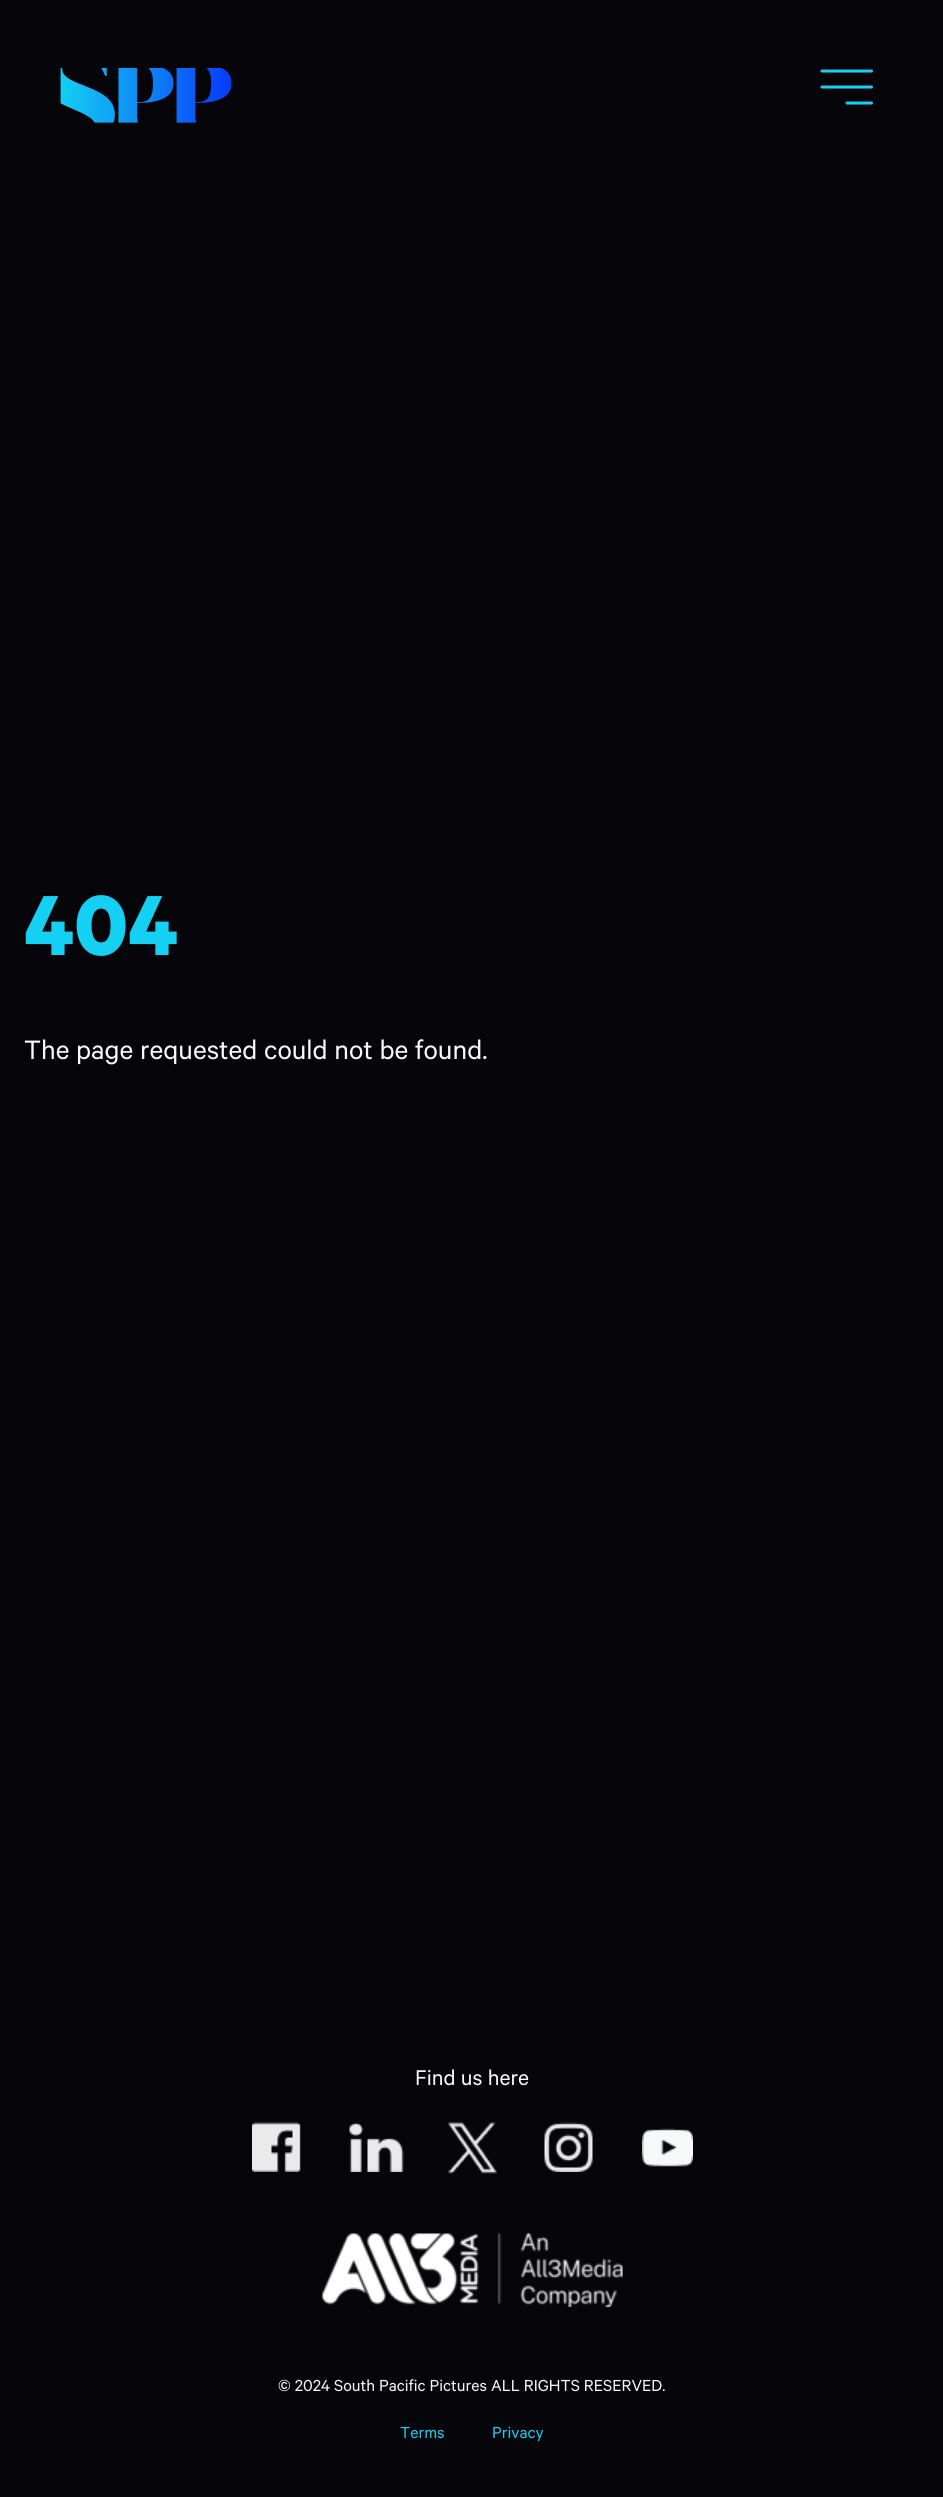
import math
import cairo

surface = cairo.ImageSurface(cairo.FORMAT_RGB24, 943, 2497)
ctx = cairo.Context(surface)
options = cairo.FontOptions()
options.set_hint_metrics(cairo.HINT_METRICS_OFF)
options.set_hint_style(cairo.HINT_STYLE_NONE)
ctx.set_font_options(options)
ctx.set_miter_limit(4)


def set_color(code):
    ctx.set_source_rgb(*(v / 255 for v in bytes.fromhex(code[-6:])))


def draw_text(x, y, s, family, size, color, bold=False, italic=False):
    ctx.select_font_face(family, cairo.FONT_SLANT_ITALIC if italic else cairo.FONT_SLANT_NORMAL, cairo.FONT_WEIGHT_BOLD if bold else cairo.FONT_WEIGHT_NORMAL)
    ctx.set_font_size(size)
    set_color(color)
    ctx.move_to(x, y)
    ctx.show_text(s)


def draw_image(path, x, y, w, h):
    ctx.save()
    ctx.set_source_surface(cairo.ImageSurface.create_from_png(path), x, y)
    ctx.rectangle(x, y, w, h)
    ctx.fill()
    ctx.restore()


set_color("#06050a")
ctx.paint()
draw_image("assets/img1.png", 60, 68, 172, 55)
ctx.new_path()
ctx.move_to(822, 71)
ctx.line_to(871.5, 71)
ctx.move_to(822, 87)
ctx.line_to(871.5, 87)
ctx.move_to(847, 103)
ctx.line_to(871.5, 103)
set_color("#14d0f2")
ctx.set_line_width(3)
ctx.set_line_cap(cairo.LINE_CAP_ROUND)
ctx.set_line_join(cairo.LINE_JOIN_ROUND)
ctx.stroke()
draw_text(24, 955, "404", "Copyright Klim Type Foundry", 96, "#14d0f2", bold=True)
draw_text(24, 1059, "The page requested could not be found.", "Copyright Klim Type Foundry", 30, "#f7f9f9")
draw_text(415, 2085, "Find us here", "Copyright Klim Type Foundry", 24, "#f7f9f9")
draw_image("assets/img2.png", 252, 2122, 49, 50)
draw_image("assets/img3.png", 349, 2122, 55, 50)
draw_image("assets/img4.png", 448, 2122, 49, 52)
draw_image("assets/img5.png", 544, 2122, 49, 50)
draw_image("assets/img6.png", 642, 2128, 51, 39)
draw_image("assets/img7.png", 322, 2233, 301, 74)
draw_text(278, 2391, "© 2024 South Pacific Pictures ALL RIGHTS RESERVED.", "Copyright Klim Type Foundry", 18, "#f7f9f9")
draw_text(400, 2438, "Terms", "Copyright Klim Type Foundry", 18, "#14d0f2")
draw_text(492, 2438, "Privacy", "Copyright Klim Type Foundry", 18, "#14d0f2")
surface.write_to_png("output.png")
